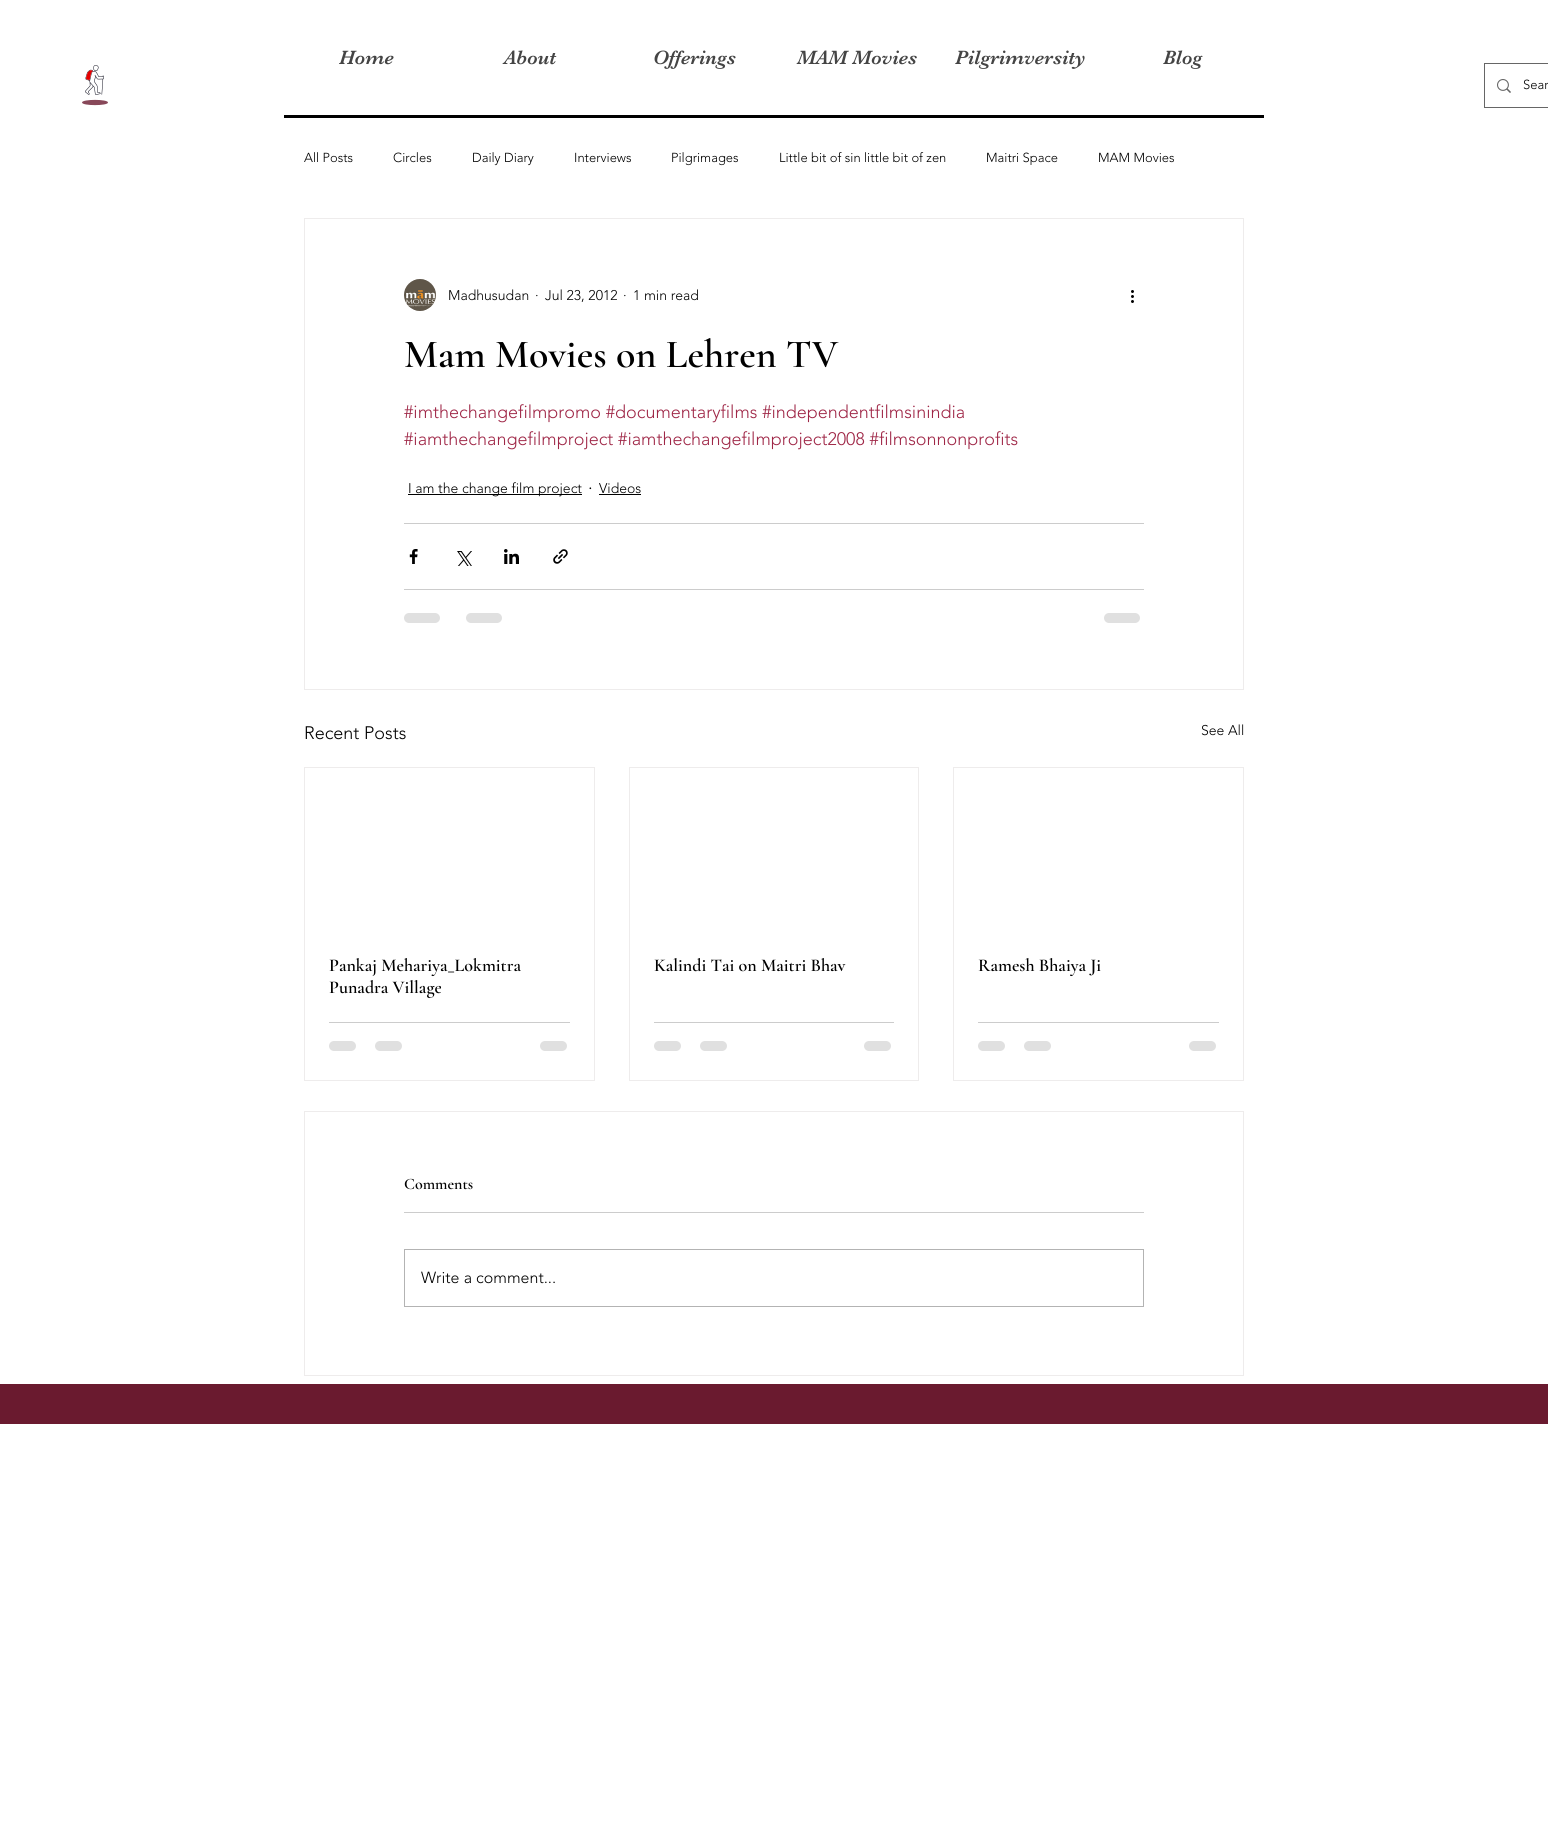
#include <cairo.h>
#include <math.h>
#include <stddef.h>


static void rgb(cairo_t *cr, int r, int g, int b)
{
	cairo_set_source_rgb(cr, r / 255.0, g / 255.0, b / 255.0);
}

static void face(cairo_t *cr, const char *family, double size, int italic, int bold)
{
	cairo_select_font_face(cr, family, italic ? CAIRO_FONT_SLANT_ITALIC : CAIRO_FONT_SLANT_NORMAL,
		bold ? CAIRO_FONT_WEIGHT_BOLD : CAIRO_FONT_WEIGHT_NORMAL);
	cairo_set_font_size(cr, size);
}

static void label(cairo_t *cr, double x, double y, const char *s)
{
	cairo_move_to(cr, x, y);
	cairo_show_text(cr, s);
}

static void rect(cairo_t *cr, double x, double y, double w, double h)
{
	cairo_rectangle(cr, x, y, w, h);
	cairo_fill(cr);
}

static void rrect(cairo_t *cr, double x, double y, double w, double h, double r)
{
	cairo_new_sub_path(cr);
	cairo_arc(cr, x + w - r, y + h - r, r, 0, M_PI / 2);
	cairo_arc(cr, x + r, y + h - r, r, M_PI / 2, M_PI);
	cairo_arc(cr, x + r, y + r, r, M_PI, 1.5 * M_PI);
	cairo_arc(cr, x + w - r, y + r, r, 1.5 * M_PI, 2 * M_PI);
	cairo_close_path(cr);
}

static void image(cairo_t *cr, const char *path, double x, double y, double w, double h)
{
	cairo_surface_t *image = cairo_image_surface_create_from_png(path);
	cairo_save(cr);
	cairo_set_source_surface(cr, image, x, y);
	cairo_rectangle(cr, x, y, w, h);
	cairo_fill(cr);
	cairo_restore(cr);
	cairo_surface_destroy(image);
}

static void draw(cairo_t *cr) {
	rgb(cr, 255, 255, 255);
	cairo_paint(cr);
	rgb(cr, 0, 0, 0);
	rect(cr, 284, 115, 980, 3);
	face(cr, "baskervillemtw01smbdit", 20, 0, 0);
	rgb(cr, 68, 68, 68);
	label(cr, 339, 64, "Home");
	label(cr, 504, 64, "About");
	label(cr, 653, 64, "Offerings");
	label(cr, 797, 64, "MAM Movies");
	label(cr, 955, 64, "Pilgrimversity");
	label(cr, 1163, 64, "Blog");
	image(cr, "image0.png", 85, 65, 19, 30);
	cairo_rectangle(cr, 1484.5, 63.5, 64, 44);
	rgb(cr, 102, 102, 102);
	cairo_set_line_width(cr, 1);
	cairo_stroke(cr);
	image(cr, "image1.png", 1497, 79, 14, 14);
	face(cr, "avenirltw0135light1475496 Light", 13, 0, 0);
	rgb(cr, 0, 0, 0);
	label(cr, 1523, 89, "Sear");
	rgb(cr, 136, 72, 89);
	cairo_new_path(cr);
	cairo_move_to(cr, 108, 102.5);
	cairo_curve_to(cr, 108, 106, 82, 106, 82, 102.5);
	cairo_curve_to(cr, 82, 99, 108, 99, 108, 102.5);
	cairo_close_path(cr);
	cairo_fill(cr);
	rgb(cr, 0, 0, 0);
	label(cr, 304, 162, "All Posts");
	label(cr, 393, 162, "Circles");
	label(cr, 472, 162, "Daily Diary");
	label(cr, 574, 162, "Interviews");
	label(cr, 671, 162, "Pilgrimages");
	label(cr, 779, 162, "Little bit of sin little bit of zen");
	label(cr, 986, 162, "Maitri Space");
	label(cr, 1098, 162, "MAM Movies");
	cairo_rectangle(cr, 304.5, 218.5, 939, 471);
	rgb(cr, 238, 236, 236);
	cairo_stroke(cr);
	image(cr, "image2.png", 404, 279, 32, 32);
	face(cr, "avenirltw0135light1475496 Light", 14, 0, 0);
	rgb(cr, 0, 0, 0);
	label(cr, 448, 300, "Madhusudan");
	label(cr, 535, 300, "·");
	label(cr, 545, 300, "Jul 23, 2012");
	label(cr, 623, 300, "·");
	label(cr, 633, 300, "1 min read");
	image(cr, "image3.png", 1131, 290, 3, 13);
	face(cr, "Cormorant Garamond SemiBold", 40, 0, 0);
	label(cr, 404, 367, "Mam Movies on Lehren TV");
	face(cr, "avenirltw0135light1475496 Light", 18, 0, 0);
	rgb(cr, 159, 39, 71);
	label(cr, 404, 418, "#imthechangefilmpromo #documentaryfilms #independentfilmsinindia");
	label(cr, 404, 445, "#iamthechangefilmproject #iamthechangefilmproject2008 #filmsonnonprofits");
	rgb(cr, 0, 0, 0);
	rect(cr, 408, 494, 174, 1);
	face(cr, "avenirltw0135light1475496 Light", 14, 0, 0);
	label(cr, 408, 493, "I am the change film project");
	face(cr, "avenirltw0135light1475496 Light", 18, 0, 0);
	label(cr, 588, 494, "·");
	face(cr, "avenirltw0135light1475496 Light", 14, 0, 0);
	label(cr, 599, 493, "Videos");
	rect(cr, 599, 494, 42, 1);
	rgb(cr, 204, 204, 204);
	rect(cr, 404, 523, 740, 1);
	image(cr, "image4.png", 409, 549, 9, 15);
	image(cr, "image5.png", 457, 551, 15, 15);
	image(cr, "image6.png", 504, 549, 15, 15);
	image(cr, "image7.png", 553, 549, 15, 15);
	rect(cr, 404, 589, 740, 1);
	rgb(cr, 224, 224, 224);
	rrect(cr, 404, 613, 36, 10, 5);
	cairo_fill(cr);
	rrect(cr, 466, 613, 36, 10, 5);
	cairo_fill(cr);
	rrect(cr, 1104, 613, 36, 10, 5);
	cairo_fill(cr);
	face(cr, "avenirltw0135light1475496 Light", 18, 0, 0);
	rgb(cr, 0, 0, 0);
	label(cr, 304, 739, "Recent Posts");
	face(cr, "avenirltw0135light1475496 Light", 14, 0, 0);
	label(cr, 1201, 735, "See All");
	cairo_rectangle(cr, 304.5, 767.5, 290, 313);
	rgb(cr, 238, 236, 236);
	cairo_stroke(cr);
	face(cr, "Cormorant Garamond SemiBold", 18, 0, 0);
	rgb(cr, 0, 0, 0);
	label(cr, 329, 971, "Pankaj Mehariya_Lokmitra");
	label(cr, 329, 993, "Punadra Village");
	rgb(cr, 204, 204, 204);
	rect(cr, 329, 1022, 241, 1);
	rgb(cr, 224, 224, 224);
	rrect(cr, 329, 1041, 27, 10, 5);
	cairo_fill(cr);
	rrect(cr, 375, 1041, 27, 10, 5);
	cairo_fill(cr);
	rrect(cr, 540, 1041, 27, 10, 5);
	cairo_fill(cr);
	cairo_rectangle(cr, 629.5, 767.5, 289, 313);
	rgb(cr, 238, 236, 236);
	cairo_stroke(cr);
	rgb(cr, 0, 0, 0);
	label(cr, 654, 971, "Kalindi Tai on Maitri Bhav");
	rgb(cr, 204, 204, 204);
	rect(cr, 654, 1022, 240, 1);
	rgb(cr, 224, 224, 224);
	rrect(cr, 654, 1041, 27, 10, 5);
	cairo_fill(cr);
	rrect(cr, 700, 1041, 27, 10, 5);
	cairo_fill(cr);
	rrect(cr, 864, 1041, 27, 10, 5);
	cairo_fill(cr);
	cairo_rectangle(cr, 953.5, 767.5, 290, 313);
	rgb(cr, 238, 236, 236);
	cairo_stroke(cr);
	rgb(cr, 0, 0, 0);
	label(cr, 978, 971, "Ramesh Bhaiya Ji");
	rgb(cr, 204, 204, 204);
	rect(cr, 978, 1022, 241, 1);
	rgb(cr, 224, 224, 224);
	rrect(cr, 978, 1041, 27, 10, 5);
	cairo_fill(cr);
	rrect(cr, 1024, 1041, 27, 10, 5);
	cairo_fill(cr);
	rrect(cr, 1189, 1041, 27, 10, 5);
	cairo_fill(cr);
	cairo_rectangle(cr, 304.5, 1111.5, 939, 264);
	rgb(cr, 238, 236, 236);
	cairo_stroke(cr);
	face(cr, "Cormorant Garamond SemiBold", 16, 0, 0);
	rgb(cr, 0, 0, 0);
	label(cr, 404, 1189, "Comments");
	rgb(cr, 204, 204, 204);
	rect(cr, 404, 1212, 740, 1);
	cairo_rectangle(cr, 404.5, 1249.5, 739, 57);
	rgb(cr, 179, 179, 179);
	cairo_stroke(cr);
	face(cr, "avenirltw0135light1475496 Light", 16, 0, 0);
	rgb(cr, 0, 0, 0);
	label(cr, 421, 1283, "Write a comment...");
	rgb(cr, 106, 26, 47);
	rect(cr, 0, 1384, 1548, 40);
}

int main(void) {
	cairo_surface_t *surface = cairo_image_surface_create(CAIRO_FORMAT_RGB24, 1548, 1830);
	cairo_t *cr = cairo_create(surface);
	cairo_font_options_t *options = cairo_font_options_create();
	cairo_font_options_set_hint_metrics(options, CAIRO_HINT_METRICS_OFF);
	cairo_font_options_set_hint_style(options, CAIRO_HINT_STYLE_NONE);
	cairo_set_font_options(cr, options);
	cairo_set_miter_limit(cr, 4);
	draw(cr);
	cairo_surface_write_to_png(surface, "render.png");
	cairo_font_options_destroy(options);
	cairo_destroy(cr);
	cairo_surface_destroy(surface);
	return 0;
}
